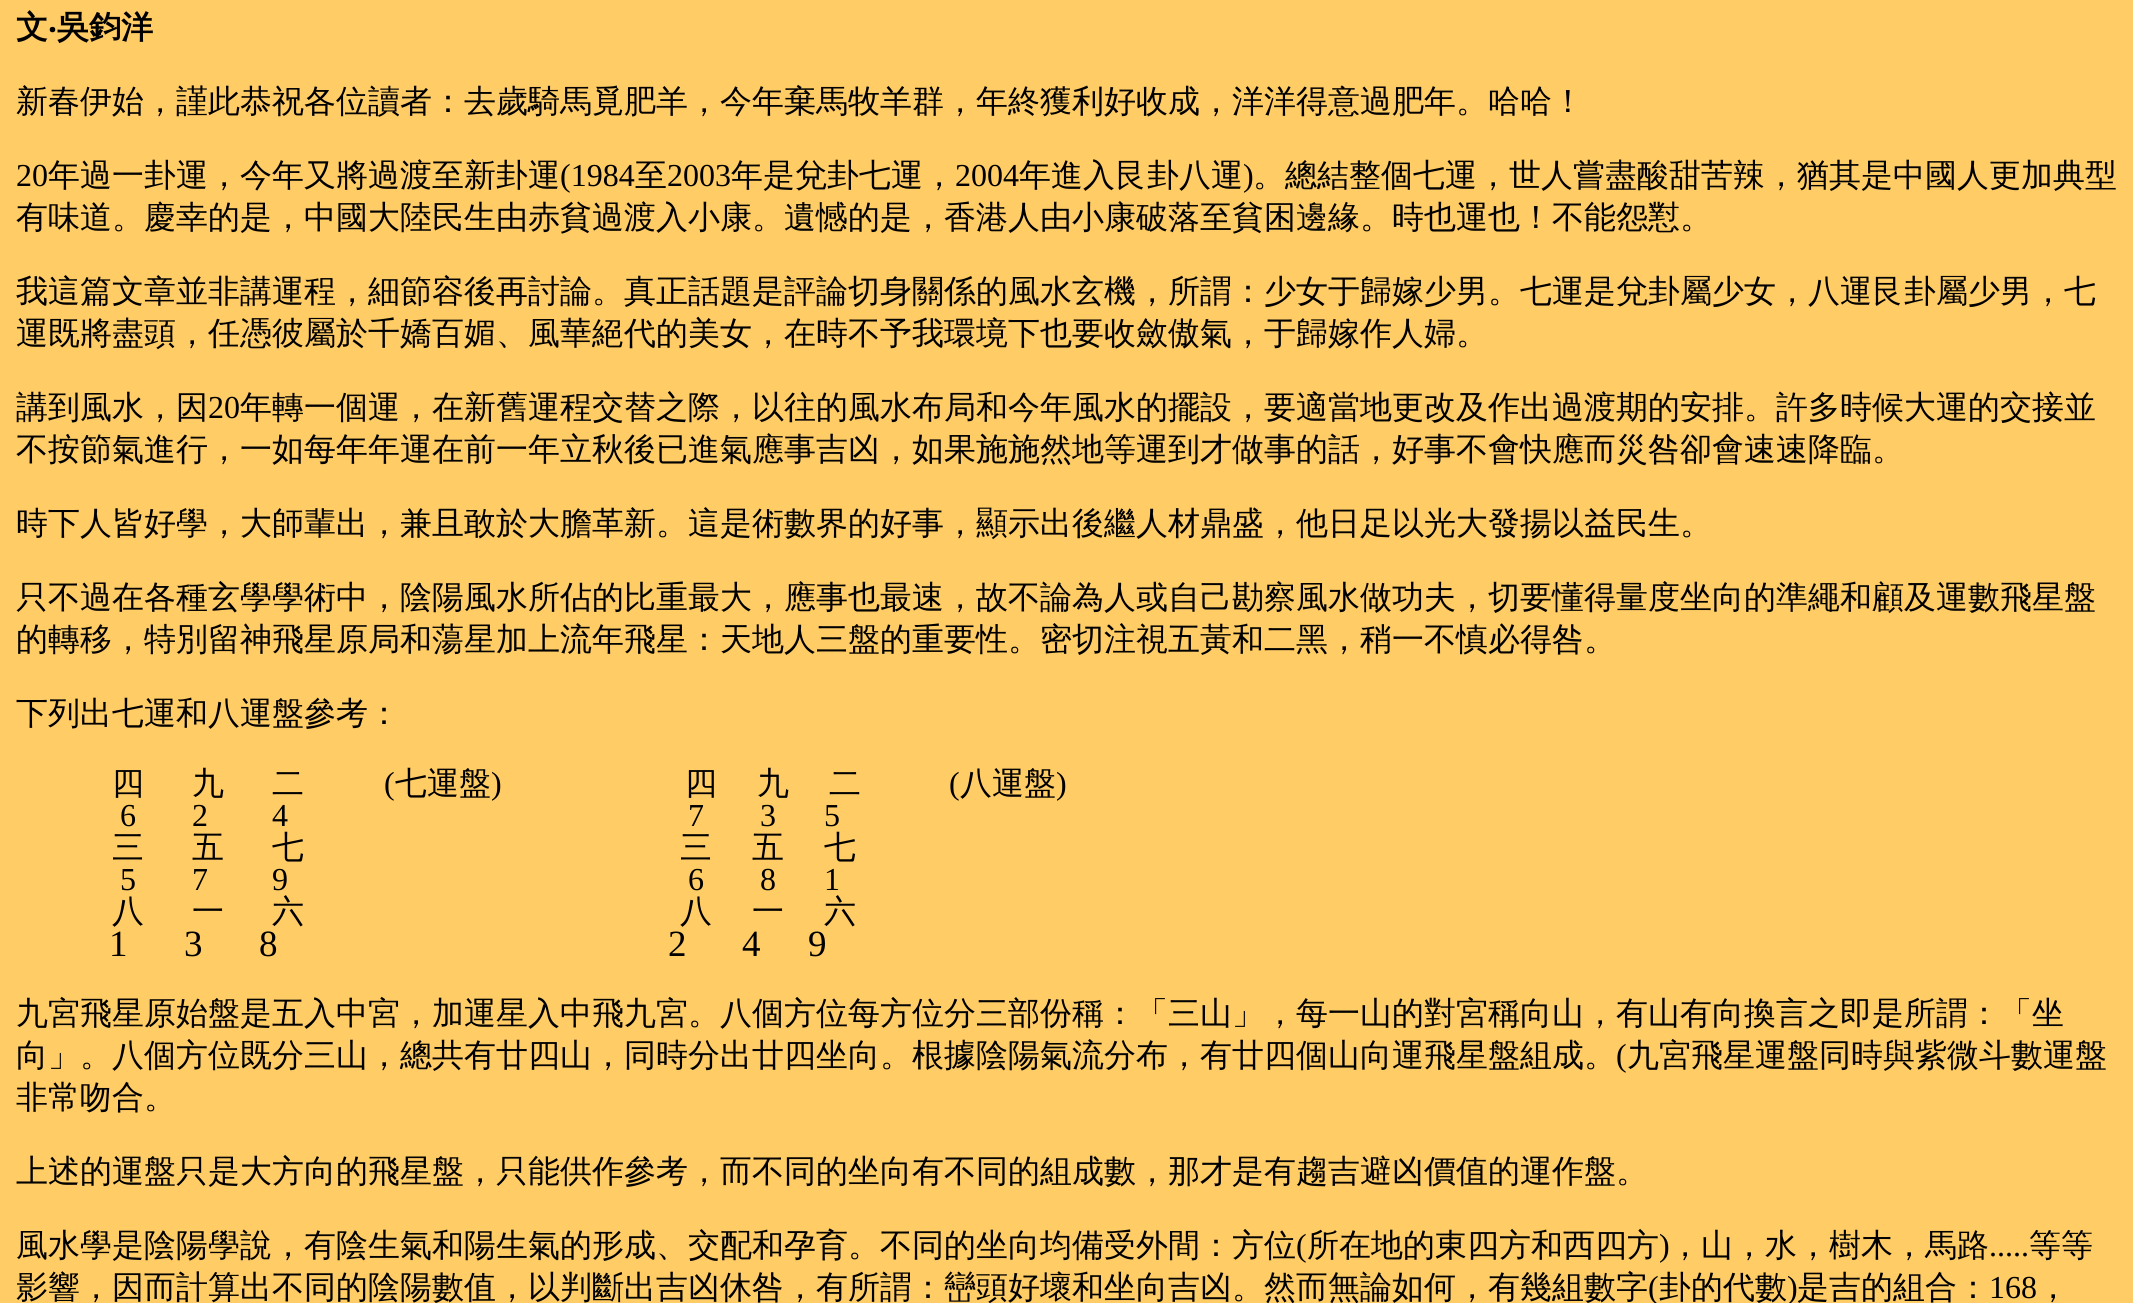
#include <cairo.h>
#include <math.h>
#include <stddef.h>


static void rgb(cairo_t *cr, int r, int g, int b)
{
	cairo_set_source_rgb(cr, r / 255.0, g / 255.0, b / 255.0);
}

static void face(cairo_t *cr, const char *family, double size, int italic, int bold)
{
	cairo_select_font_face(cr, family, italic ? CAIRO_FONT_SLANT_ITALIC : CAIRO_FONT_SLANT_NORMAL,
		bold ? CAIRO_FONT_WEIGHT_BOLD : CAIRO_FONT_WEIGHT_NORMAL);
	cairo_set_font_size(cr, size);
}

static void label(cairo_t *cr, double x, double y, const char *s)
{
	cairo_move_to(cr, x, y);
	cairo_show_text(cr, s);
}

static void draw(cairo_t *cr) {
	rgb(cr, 255, 204, 102);
	cairo_paint(cr);
	face(cr, "WenQuanYi Zen Hei", 32, 0, 1);
	rgb(cr, 0, 0, 0);
	label(cr, 16, 38, "文");
	face(cr, "Noto Sans", 32, 0, 1);
	label(cr, 48, 38, "‧");
	face(cr, "WenQuanYi Zen Hei", 32, 0, 1);
	label(cr, 57, 38, "吳鈞洋");
	face(cr, "WenQuanYi Zen Hei Medium", 32, 0, 0);
	label(cr, 16, 112, "新春伊始，謹此恭祝各位讀者：去歲騎馬覓肥羊，今年棄馬牧羊群，年終獲利好收成，洋洋得意過肥年。哈哈！");
	face(cr, "Liberation Serif", 32, 0, 0);
	label(cr, 16, 186, "20");
	face(cr, "WenQuanYi Zen Hei Medium", 32, 0, 0);
	label(cr, 48, 186, "年過一卦運，今年又將過渡至新卦運");
	face(cr, "Liberation Serif", 32, 0, 0);
	label(cr, 560, 186, "(1984");
	face(cr, "WenQuanYi Zen Hei Medium", 32, 0, 0);
	label(cr, 635, 186, "至");
	face(cr, "Liberation Serif", 32, 0, 0);
	label(cr, 667, 186, "2003");
	face(cr, "WenQuanYi Zen Hei Medium", 32, 0, 0);
	label(cr, 731, 186, "年是兌卦七運，");
	face(cr, "Liberation Serif", 32, 0, 0);
	label(cr, 955, 186, "2004");
	face(cr, "WenQuanYi Zen Hei Medium", 32, 0, 0);
	label(cr, 1019, 186, "年進入艮卦八運");
	face(cr, "Liberation Serif", 32, 0, 0);
	label(cr, 1243, 186, ")");
	face(cr, "WenQuanYi Zen Hei Medium", 32, 0, 0);
	label(cr, 1253, 186, "。總結整個七運，世人嘗盡酸甜苦辣，猶其是中國人更加典型");
	label(cr, 16, 228, "有味道。慶幸的是，中國大陸民生由赤貧過渡入小康。遺憾的是，香港人由小康破落至貧困邊緣。時也運也！不能怨懟。");
	label(cr, 16, 302, "我這篇文章並非講運程，細節容後再討論。真正話題是評論切身關係的風水玄機，所謂：少女于歸嫁少男。七運是兌卦屬少女，八運艮卦屬少男，七");
	label(cr, 16, 344, "運既將盡頭，任憑彼屬於千嬌百媚、風華絕代的美女，在時不予我環境下也要收斂傲氣，于歸嫁作人婦。");
	label(cr, 16, 418, "講到風水，因");
	face(cr, "Liberation Serif", 32, 0, 0);
	label(cr, 208, 418, "20");
	face(cr, "WenQuanYi Zen Hei Medium", 32, 0, 0);
	label(cr, 240, 418, "年轉一個運，在新舊運程交替之際，以往的風水布局和今年風水的擺設，要適當地更改及作出過渡期的安排。許多時候大運的交接並");
	label(cr, 16, 460, "不按節氣進行，一如每年年運在前一年立秋後已進氣應事吉凶，如果施施然地等運到才做事的話，好事不會快應而災咎卻會速速降臨。");
	label(cr, 16, 534, "時下人皆好學，大師輩出，兼且敢於大膽革新。這是術數界的好事，顯示出後繼人材鼎盛，他日足以光大發揚以益民生。");
	label(cr, 16, 608, "只不過在各種玄學學術中，陰陽風水所佔的比重最大，應事也最速，故不論為人或自己勘察風水做功夫，切要懂得量度坐向的準繩和顧及運數飛星盤");
	label(cr, 16, 650, "的轉移，特別留神飛星原局和蕩星加上流年飛星：天地人三盤的重要性。密切注視五黃和二黑，稍一不慎必得咎。");
	label(cr, 16, 724, "下列出七運和八運盤參考：");
	label(cr, 112, 794, "四");
	label(cr, 192, 794, "九");
	label(cr, 272, 794, "二");
	face(cr, "Liberation Serif", 32, 0, 0);
	label(cr, 384, 794, "(");
	face(cr, "WenQuanYi Zen Hei Medium", 32, 0, 0);
	label(cr, 395, 794, "七運盤");
	face(cr, "Liberation Serif", 32, 0, 0);
	label(cr, 491, 794, ")");
	face(cr, "WenQuanYi Zen Hei Medium", 32, 0, 0);
	label(cr, 685, 794, "四");
	label(cr, 757, 794, "九");
	label(cr, 829, 794, "二");
	face(cr, "Liberation Serif", 32, 0, 0);
	label(cr, 949, 794, "(");
	face(cr, "WenQuanYi Zen Hei Medium", 32, 0, 0);
	label(cr, 960, 794, "八運盤");
	face(cr, "Liberation Serif", 32, 0, 0);
	label(cr, 1056, 794, ")");
	label(cr, 120, 826, "6");
	label(cr, 192, 826, "2");
	label(cr, 272, 826, "4");
	label(cr, 688, 826, "7");
	label(cr, 760, 826, "3");
	label(cr, 824, 826, "5");
	face(cr, "WenQuanYi Zen Hei Medium", 32, 0, 0);
	label(cr, 112, 858, "三");
	label(cr, 192, 858, "五");
	label(cr, 272, 858, "七");
	label(cr, 680, 858, "三");
	label(cr, 752, 858, "五");
	label(cr, 824, 858, "七");
	face(cr, "Liberation Serif", 32, 0, 0);
	label(cr, 120, 890, "5");
	label(cr, 192, 890, "7");
	label(cr, 272, 890, "9");
	label(cr, 688, 890, "6");
	label(cr, 760, 890, "8");
	label(cr, 824, 890, "1");
	face(cr, "WenQuanYi Zen Hei Medium", 32, 0, 0);
	label(cr, 112, 922, "八");
	label(cr, 192, 922, "一");
	label(cr, 272, 922, "六");
	label(cr, 680, 922, "八");
	label(cr, 752, 922, "一");
	label(cr, 824, 922, "六");
	face(cr, "Liberation Serif", 37, 0, 0);
	label(cr, 109, 956, "1");
	label(cr, 184, 956, "3");
	label(cr, 259, 956, "8");
	label(cr, 668, 956, "2");
	label(cr, 742, 956, "4");
	label(cr, 808, 956, "9");
	face(cr, "WenQuanYi Zen Hei Medium", 32, 0, 0);
	label(cr, 16, 1024, "九宮飛星原始盤是五入中宮，加運星入中飛九宮。八個方位每方位分三部份稱：「三山」，每一山的對宮稱向山，有山有向換言之即是所謂：「坐");
	label(cr, 16, 1066, "向」。八個方位既分三山，總共有廿四山，同時分出廿四坐向。根據陰陽氣流分布，有廿四個山向運飛星盤組成。");
	face(cr, "Liberation Serif", 32, 0, 0);
	label(cr, 1616, 1066, "(");
	face(cr, "WenQuanYi Zen Hei Medium", 32, 0, 0);
	label(cr, 1627, 1066, "九宮飛星運盤同時與紫微斗數運盤");
	label(cr, 16, 1108, "非常吻合。");
	label(cr, 16, 1182, "上述的運盤只是大方向的飛星盤，只能供作參考，而不同的坐向有不同的組成數，那才是有趨吉避凶價值的運作盤。");
	label(cr, 16, 1256, "風水學是陰陽學說，有陰生氣和陽生氣的形成、交配和孕育。不同的坐向均備受外間：方位");
	face(cr, "Liberation Serif", 32, 0, 0);
	label(cr, 1296, 1256, "(");
	face(cr, "WenQuanYi Zen Hei Medium", 32, 0, 0);
	label(cr, 1307, 1256, "所在地的東四方和西四方");
	face(cr, "Liberation Serif", 32, 0, 0);
	label(cr, 1659, 1256, ")");
	face(cr, "WenQuanYi Zen Hei Medium", 32, 0, 0);
	label(cr, 1669, 1256, "，山，水，樹木，馬路");
	face(cr, "Liberation Serif", 32, 0, 0);
	label(cr, 1989, 1256, ".....");
	face(cr, "WenQuanYi Zen Hei Medium", 32, 0, 0);
	label(cr, 2029, 1256, "等等");
	label(cr, 16, 1298, "影響，因而計算出不同的陰陽數值，以判斷出吉凶休咎，有所謂：巒頭好壞和坐向吉凶。然而無論如何，有幾組數字");
	face(cr, "Liberation Serif", 32, 0, 0);
	label(cr, 1648, 1298, "(");
	face(cr, "WenQuanYi Zen Hei Medium", 32, 0, 0);
	label(cr, 1659, 1298, "卦的代數");
	face(cr, "Liberation Serif", 32, 0, 0);
	label(cr, 1787, 1298, ")");
	face(cr, "WenQuanYi Zen Hei Medium", 32, 0, 0);
	label(cr, 1797, 1298, "是吉的組合：");
	face(cr, "Liberation Serif", 32, 0, 0);
	label(cr, 1989, 1298, "168");
	face(cr, "WenQuanYi Zen Hei Medium", 32, 0, 0);
	label(cr, 2037, 1298, "，");
}

int main(void) {
	cairo_surface_t *surface = cairo_image_surface_create(CAIRO_FORMAT_RGB24, 2133, 1303);
	cairo_t *cr = cairo_create(surface);
	cairo_font_options_t *options = cairo_font_options_create();
	cairo_font_options_set_hint_metrics(options, CAIRO_HINT_METRICS_OFF);
	cairo_font_options_set_hint_style(options, CAIRO_HINT_STYLE_NONE);
	cairo_set_font_options(cr, options);
	cairo_set_miter_limit(cr, 4);
	draw(cr);
	cairo_surface_write_to_png(surface, "render.png");
	cairo_font_options_destroy(options);
	cairo_destroy(cr);
	cairo_surface_destroy(surface);
	return 0;
}
